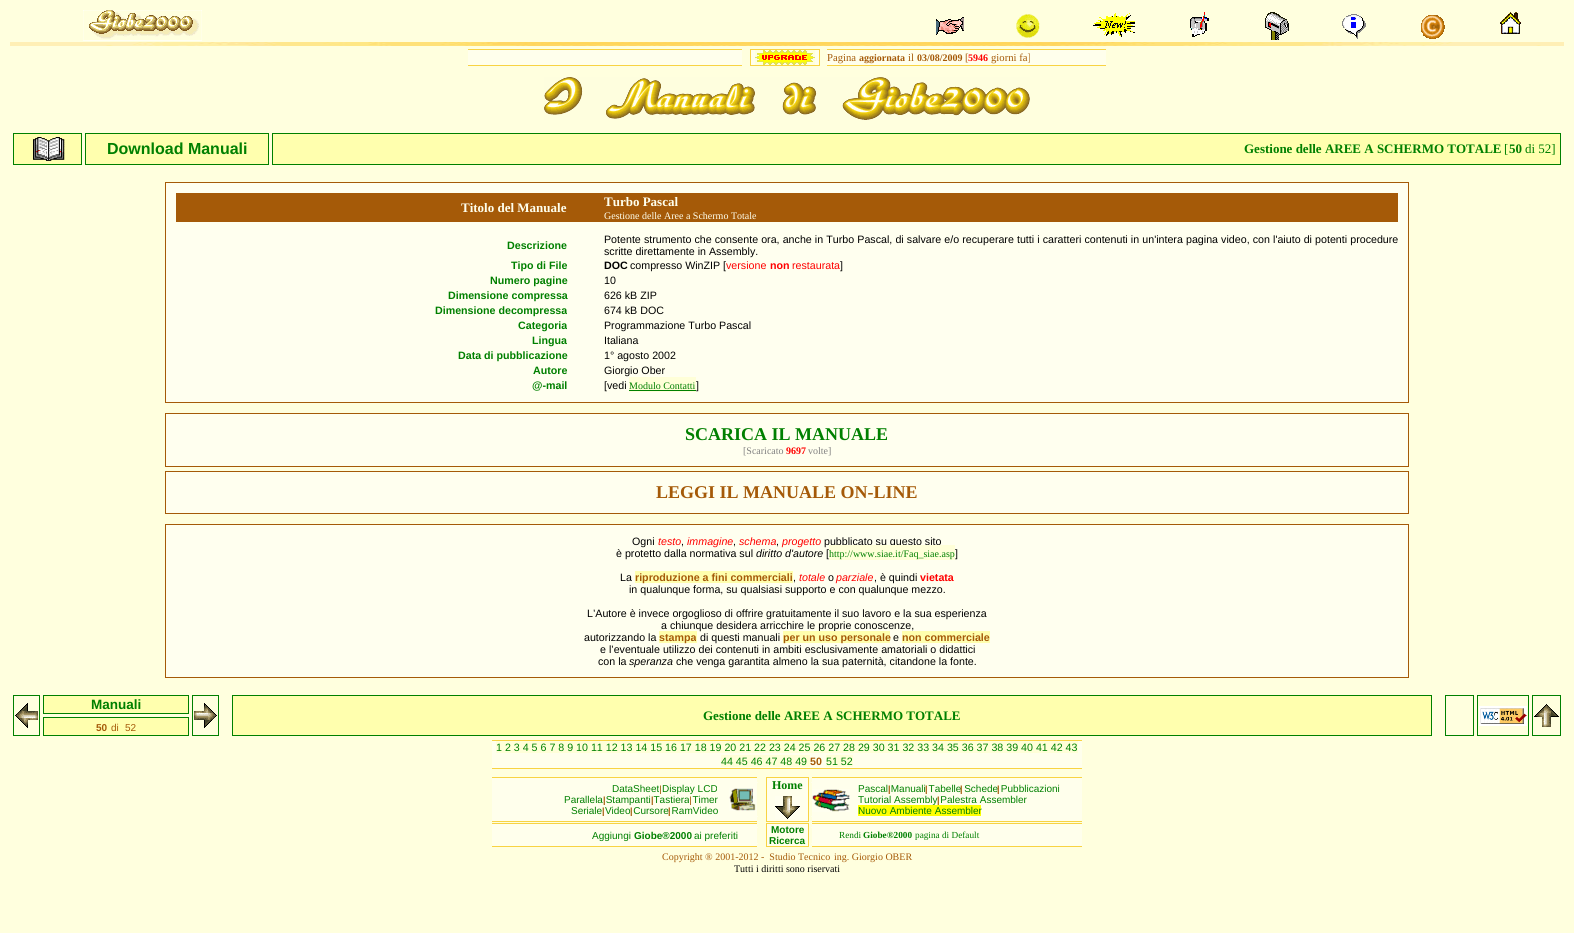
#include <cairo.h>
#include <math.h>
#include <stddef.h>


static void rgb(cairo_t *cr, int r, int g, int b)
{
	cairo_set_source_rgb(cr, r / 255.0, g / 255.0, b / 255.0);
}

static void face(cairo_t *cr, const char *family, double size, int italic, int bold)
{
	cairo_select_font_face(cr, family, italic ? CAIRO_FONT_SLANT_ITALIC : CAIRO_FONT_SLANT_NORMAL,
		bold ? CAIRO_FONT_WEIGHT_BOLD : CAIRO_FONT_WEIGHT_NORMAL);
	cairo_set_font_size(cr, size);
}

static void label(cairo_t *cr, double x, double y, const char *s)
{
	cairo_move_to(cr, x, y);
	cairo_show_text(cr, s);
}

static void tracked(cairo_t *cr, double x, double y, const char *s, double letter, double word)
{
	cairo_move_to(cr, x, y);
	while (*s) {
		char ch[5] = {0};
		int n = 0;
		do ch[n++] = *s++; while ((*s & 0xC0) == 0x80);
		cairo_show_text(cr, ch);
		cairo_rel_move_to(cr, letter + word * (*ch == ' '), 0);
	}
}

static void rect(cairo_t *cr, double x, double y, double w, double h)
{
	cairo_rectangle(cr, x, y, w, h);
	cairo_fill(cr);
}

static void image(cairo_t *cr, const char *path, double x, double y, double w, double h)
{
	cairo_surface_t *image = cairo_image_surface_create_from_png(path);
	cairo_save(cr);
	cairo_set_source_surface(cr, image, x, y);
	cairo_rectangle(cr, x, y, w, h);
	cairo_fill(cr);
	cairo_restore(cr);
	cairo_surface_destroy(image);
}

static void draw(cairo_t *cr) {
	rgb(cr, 255, 255, 222);
	cairo_paint(cr);
	image(cr, "image0.png", 83, 10, 119, 31);
	image(cr, "image1.png", 936, 17, 28, 18);
	image(cr, "image2.png", 1016, 13, 24, 26);
	image(cr, "image3.png", 1093, 13, 42, 24);
	image(cr, "image4.png", 1190, 12, 19, 25);
	image(cr, "image5.png", 1265, 12, 24, 28);
	image(cr, "image6.png", 1342, 14, 24, 25);
	image(cr, "image7.png", 1421, 15, 24, 24);
	image(cr, "image8.png", 1500, 12, 21, 22);
	image(cr, "image9.png", 10, 42, 1554, 4);
	rgb(cr, 255, 255, 236);
	rect(cr, 468, 50, 274, 15);
	rgb(cr, 248, 211, 67);
	rect(cr, 468, 49, 274, 1);
	rect(cr, 468, 65, 274, 1);
	rgb(cr, 255, 255, 236);
	cairo_rectangle(cr, 750.5, 49.5, 69, 16);
	cairo_fill_preserve(cr);
	rgb(cr, 248, 211, 67);
	cairo_set_line_width(cr, 1);
	cairo_stroke(cr);
	image(cr, "image10.png", 755, 50, 60, 15);
	rgb(cr, 255, 255, 236);
	rect(cr, 827, 50, 279, 15);
	rgb(cr, 248, 211, 67);
	rect(cr, 827, 49, 279, 1);
	rect(cr, 827, 65, 279, 1);
	face(cr, "Liberation Serif", 10.67, 0, 0);
	rgb(cr, 165, 90, 8);
	label(cr, 827, 61, "Pagina");
	face(cr, "Liberation Serif", 10, 0, 1);
	label(cr, 859, 61, "aggiornata");
	face(cr, "Liberation Serif", 10.67, 0, 0);
	label(cr, 908, 61, "il");
	face(cr, "Liberation Serif", 10, 0, 1);
	label(cr, 917, 61, "03/08/2009");
	face(cr, "Liberation Serif", 10.67, 0, 0);
	label(cr, 965, 61, "[");
	face(cr, "Liberation Serif", 10, 0, 1);
	rgb(cr, 255, 0, 0);
	label(cr, 968, 61, "5946");
	face(cr, "Liberation Serif", 10.67, 0, 0);
	rgb(cr, 165, 90, 8);
	label(cr, 991, 61, "giorni fa]");
	image(cr, "image11.png", 544, 77, 486, 43);
	rgb(cr, 255, 255, 174);
	cairo_rectangle(cr, 13.5, 133.5, 68, 31);
	cairo_fill_preserve(cr);
	rgb(cr, 0, 128, 0);
	cairo_stroke(cr);
	image(cr, "image12.png", 33, 137, 32, 24);
	rgb(cr, 255, 255, 174);
	cairo_rectangle(cr, 85.5, 133.5, 183, 31);
	cairo_fill_preserve(cr);
	rgb(cr, 0, 128, 0);
	cairo_stroke(cr);
	face(cr, "Liberation Sans", 16, 0, 1);
	label(cr, 107, 154, "Download Manuali");
	rgb(cr, 255, 255, 174);
	cairo_rectangle(cr, 272.5, 133.5, 1288, 31);
	cairo_fill_preserve(cr);
	rgb(cr, 0, 128, 0);
	cairo_stroke(cr);
	face(cr, "Liberation Serif", 13, 0, 1);
	label(cr, 1244, 153, "Gestione delle AREE A SCHERMO TOTALE");
	face(cr, "Liberation Serif", 13, 0, 0);
	label(cr, 1504, 153, "[");
	face(cr, "Liberation Serif", 13, 0, 1);
	label(cr, 1509, 153, "50");
	face(cr, "Liberation Serif", 13, 0, 0);
	label(cr, 1525, 153, "di 52]");
	rgb(cr, 255, 255, 239);
	cairo_rectangle(cr, 165.5, 182.5, 1243, 220);
	cairo_fill_preserve(cr);
	rgb(cr, 165, 90, 8);
	cairo_stroke(cr);
	rect(cr, 567, 194, 830, 28);
	rect(cr, 177, 194, 390, 27);
	rect(cr, 176, 221, 392, 1);
	rect(cr, 176, 193, 1222, 1);
	rect(cr, 176, 193, 1, 29);
	face(cr, "Liberation Serif", 13, 0, 1);
	rgb(cr, 255, 255, 237);
	label(cr, 461, 212, "Titolo del Manuale");
	rgb(cr, 165, 90, 8);
	rect(cr, 1397, 193, 1, 29);
	rgb(cr, 255, 255, 237);
	label(cr, 604, 206, "Turbo Pascal");
	face(cr, "Liberation Serif", 10, 0, 0);
	label(cr, 604, 219, "Gestione delle Aree a Schermo Totale");
	face(cr, "Liberation Sans", 10.67, 0, 1);
	rgb(cr, 0, 128, 0);
	label(cr, 507, 249, "Descrizione");
	face(cr, "Liberation Sans", 10.67, 0, 0);
	rgb(cr, 0, 0, 0);
	tracked(cr, 604, 243, "Potente strumento che consente ora, anche in Turbo Pascal, di salvare e/o recuperare tutti i caratteri contenuti in un'intera pagina video, con l'aiuto di potenti procedure", 0, 0.15);
	label(cr, 604, 255, "scritte direttamente in Assembly.");
	face(cr, "Liberation Sans", 10.67, 0, 1);
	rgb(cr, 0, 128, 0);
	label(cr, 511, 269, "Tipo di File");
	rgb(cr, 0, 0, 0);
	label(cr, 604, 269, "DOC");
	face(cr, "Liberation Sans", 10.67, 0, 0);
	label(cr, 630, 269, "compresso WinZIP [");
	rgb(cr, 255, 0, 0);
	label(cr, 726, 269, "versione");
	face(cr, "Liberation Sans", 10.67, 0, 1);
	label(cr, 770, 269, "non");
	face(cr, "Liberation Sans", 10.67, 0, 0);
	label(cr, 792, 269, "restaurata");
	rgb(cr, 0, 0, 0);
	label(cr, 840, 269, "]");
	face(cr, "Liberation Sans", 10.67, 0, 1);
	rgb(cr, 0, 128, 0);
	label(cr, 490, 284, "Numero pagine");
	face(cr, "Liberation Sans", 10.67, 0, 0);
	rgb(cr, 0, 0, 0);
	label(cr, 604, 284, "10");
	face(cr, "Liberation Sans", 10.67, 0, 1);
	rgb(cr, 0, 128, 0);
	label(cr, 448, 299, "Dimensione compressa");
	face(cr, "Liberation Sans", 10.67, 0, 0);
	rgb(cr, 0, 0, 0);
	label(cr, 604, 299, "626 kB ZIP");
	face(cr, "Liberation Sans", 10.67, 0, 1);
	rgb(cr, 0, 128, 0);
	label(cr, 435, 314, "Dimensione decompressa");
	face(cr, "Liberation Sans", 10.67, 0, 0);
	rgb(cr, 0, 0, 0);
	label(cr, 604, 314, "674 kB DOC");
	face(cr, "Liberation Sans", 10.67, 0, 1);
	rgb(cr, 0, 128, 0);
	label(cr, 518, 329, "Categoria");
	face(cr, "Liberation Sans", 10.67, 0, 0);
	rgb(cr, 0, 0, 0);
	label(cr, 604, 329, "Programmazione Turbo Pascal");
	face(cr, "Liberation Sans", 10.67, 0, 1);
	rgb(cr, 0, 128, 0);
	label(cr, 532, 344, "Lingua");
	face(cr, "Liberation Sans", 10.67, 0, 0);
	rgb(cr, 0, 0, 0);
	label(cr, 604, 344, "Italiana");
	face(cr, "Liberation Sans", 10.67, 0, 1);
	rgb(cr, 0, 128, 0);
	label(cr, 458, 359, "Data di pubblicazione");
	face(cr, "Liberation Sans", 10.67, 0, 0);
	rgb(cr, 0, 0, 0);
	label(cr, 604, 359, "1° agosto 2002");
	face(cr, "Liberation Sans", 10.67, 0, 1);
	rgb(cr, 0, 128, 0);
	label(cr, 533, 374, "Autore");
	face(cr, "Liberation Sans", 10.67, 0, 0);
	rgb(cr, 0, 0, 0);
	label(cr, 604, 374, "Giorgio Ober");
	face(cr, "Liberation Sans", 10.67, 0, 1);
	rgb(cr, 0, 128, 0);
	label(cr, 532, 389, "@-mail");
	face(cr, "Liberation Sans", 10.67, 0, 0);
	rgb(cr, 0, 0, 0);
	label(cr, 604, 389, "[vedi");
	rgb(cr, 255, 255, 216);
	rect(cr, 629, 377, 67, 15);
	face(cr, "Liberation Serif", 10, 0, 0);
	rgb(cr, 0, 128, 0);
	label(cr, 629, 389, "Modulo Contatti");
	rect(cr, 629, 390, 67, 1);
	face(cr, "Liberation Sans", 10.67, 0, 0);
	rgb(cr, 0, 0, 0);
	label(cr, 696, 389, "]");
	rgb(cr, 255, 255, 239);
	cairo_rectangle(cr, 165.5, 413.5, 1243, 53);
	cairo_fill_preserve(cr);
	rgb(cr, 165, 90, 8);
	cairo_stroke(cr);
	face(cr, "Liberation Serif", 18, 0, 1);
	rgb(cr, 0, 128, 0);
	label(cr, 685, 440, "SCARICA IL MANUALE");
	face(cr, "Liberation Serif", 10, 0, 0);
	rgb(cr, 128, 128, 128);
	label(cr, 743, 454, "[Scaricato");
	face(cr, "Liberation Serif", 10, 0, 1);
	rgb(cr, 255, 0, 0);
	label(cr, 786, 454, "9697");
	face(cr, "Liberation Serif", 10, 0, 0);
	rgb(cr, 128, 128, 128);
	label(cr, 808, 454, "volte]");
	rgb(cr, 255, 255, 239);
	cairo_rectangle(cr, 165.5, 471.5, 1243, 42);
	cairo_fill_preserve(cr);
	rgb(cr, 165, 90, 8);
	cairo_stroke(cr);
	face(cr, "Liberation Serif", 18, 0, 1);
	label(cr, 656, 498, "LEGGI IL MANUALE ON-LINE");
	rgb(cr, 255, 255, 239);
	cairo_rectangle(cr, 165.5, 524.5, 1243, 153);
	cairo_fill_preserve(cr);
	rgb(cr, 165, 90, 8);
	cairo_stroke(cr);
	face(cr, "Liberation Sans", 10.67, 0, 0);
	rgb(cr, 0, 0, 0);
	label(cr, 632, 545, "Ogni");
	face(cr, "Liberation Sans", 10.67, 1, 0);
	rgb(cr, 255, 0, 0);
	label(cr, 658, 545, "testo");
	face(cr, "Liberation Sans", 10.67, 0, 0);
	rgb(cr, 0, 0, 0);
	label(cr, 681, 545, ",");
	face(cr, "Liberation Sans", 10.67, 1, 0);
	rgb(cr, 255, 0, 0);
	label(cr, 687, 545, "immagine");
	face(cr, "Liberation Sans", 10.67, 0, 0);
	rgb(cr, 0, 0, 0);
	label(cr, 733, 545, ",");
	face(cr, "Liberation Sans", 10.67, 1, 0);
	rgb(cr, 255, 0, 0);
	label(cr, 739, 545, "schema");
	face(cr, "Liberation Sans", 10.67, 0, 0);
	rgb(cr, 0, 0, 0);
	label(cr, 776, 545, ",");
	face(cr, "Liberation Sans", 10.67, 1, 0);
	rgb(cr, 255, 0, 0);
	label(cr, 782, 545, "progetto");
	face(cr, "Liberation Sans", 10.67, 0, 0);
	rgb(cr, 0, 0, 0);
	label(cr, 824, 545, "pubblicato su questo sito");
	label(cr, 616, 557, "è protetto dalla normativa sul");
	face(cr, "Liberation Sans", 10.67, 1, 0);
	label(cr, 756, 557, "diritto d'autore");
	face(cr, "Liberation Sans", 10.67, 0, 0);
	label(cr, 826, 557, "[");
	rgb(cr, 255, 255, 216);
	rect(cr, 829, 545, 126, 15);
	face(cr, "Liberation Serif", 10, 0, 0);
	rgb(cr, 0, 128, 0);
	label(cr, 829, 557, "http://www.siae.it/Faq_siae.asp");
	face(cr, "Liberation Sans", 10.67, 0, 0);
	rgb(cr, 0, 0, 0);
	label(cr, 955, 557, "]");
	label(cr, 620, 581, "La");
	rgb(cr, 255, 255, 174);
	rect(cr, 635, 571, 158, 12);
	face(cr, "Liberation Sans", 10.67, 0, 1);
	rgb(cr, 165, 90, 8);
	label(cr, 635, 581, "riproduzione a fini commerciali");
	face(cr, "Liberation Sans", 10.67, 0, 0);
	rgb(cr, 0, 0, 0);
	label(cr, 793, 581, ",");
	face(cr, "Liberation Sans", 10.67, 1, 0);
	rgb(cr, 255, 0, 0);
	label(cr, 799, 581, "totale");
	face(cr, "Liberation Sans", 10.67, 0, 0);
	rgb(cr, 0, 0, 0);
	label(cr, 828, 581, "o");
	face(cr, "Liberation Sans", 10.67, 1, 0);
	rgb(cr, 255, 0, 0);
	label(cr, 836, 581, "parziale");
	face(cr, "Liberation Sans", 10.67, 0, 0);
	rgb(cr, 0, 0, 0);
	label(cr, 874, 581, ", è quindi");
	face(cr, "Liberation Sans", 10.67, 0, 1);
	rgb(cr, 255, 0, 0);
	label(cr, 920, 581, "vietata");
	face(cr, "Liberation Sans", 10.67, 0, 0);
	rgb(cr, 0, 0, 0);
	label(cr, 629, 593, "in qualunque forma, su qualsiasi supporto e con qualunque mezzo.");
	label(cr, 587, 617, "L’Autore è invece orgoglioso di offrire gratuitamente il suo lavoro e la sua esperienza");
	label(cr, 661, 629, "a chiunque desidera arricchire le proprie conoscenze,");
	label(cr, 584, 641, "autorizzando la");
	rgb(cr, 255, 255, 174);
	rect(cr, 659, 631, 38, 12);
	face(cr, "Liberation Sans", 10.67, 0, 1);
	rgb(cr, 165, 90, 8);
	label(cr, 659, 641, "stampa");
	face(cr, "Liberation Sans", 10.67, 0, 0);
	rgb(cr, 0, 0, 0);
	label(cr, 700, 641, "di questi manuali");
	rgb(cr, 255, 255, 174);
	rect(cr, 783, 631, 107, 12);
	face(cr, "Liberation Sans", 10.67, 0, 1);
	rgb(cr, 165, 90, 8);
	label(cr, 783, 641, "per un uso personale");
	face(cr, "Liberation Sans", 10.67, 0, 0);
	rgb(cr, 0, 0, 0);
	label(cr, 893, 641, "e");
	rgb(cr, 255, 255, 174);
	rect(cr, 902, 631, 88, 12);
	face(cr, "Liberation Sans", 10.67, 0, 1);
	rgb(cr, 165, 90, 8);
	label(cr, 902, 641, "non commerciale");
	face(cr, "Liberation Sans", 10.67, 0, 0);
	rgb(cr, 0, 0, 0);
	label(cr, 600, 653, "e l’eventuale utilizzo dei contenuti in ambiti esclusivamente amatoriali o didattici");
	label(cr, 598, 665, "con la");
	face(cr, "Liberation Sans", 10.67, 1, 0);
	label(cr, 629, 665, "speranza");
	face(cr, "Liberation Sans", 10.67, 0, 0);
	label(cr, 676, 665, "che venga garantita almeno la sua paternità, citandone la fonte.");
	cairo_rectangle(cr, 13.5, 695.5, 26, 40);
	rgb(cr, 0, 128, 0);
	cairo_stroke(cr);
	image(cr, "image13.png", 15, 703, 23, 25);
	rgb(cr, 255, 255, 174);
	cairo_rectangle(cr, 43.5, 695.5, 145, 18);
	cairo_fill_preserve(cr);
	rgb(cr, 0, 128, 0);
	cairo_stroke(cr);
	face(cr, "Liberation Sans", 13.5, 0, 1);
	label(cr, 91, 709, "Manuali");
	cairo_rectangle(cr, 192.5, 695.5, 26, 40);
	cairo_stroke(cr);
	image(cr, "image14.png", 194, 703, 23, 25);
	cairo_rectangle(cr, 1445.5, 695.5, 28, 40);
	cairo_stroke(cr);
	cairo_rectangle(cr, 1477.5, 695.5, 51, 40);
	cairo_stroke(cr);
	image(cr, "image15.png", 1479, 706, 48, 20);
	cairo_rectangle(cr, 1532.5, 695.5, 28, 40);
	cairo_stroke(cr);
	image(cr, "image16.png", 1534, 704, 25, 23);
	rgb(cr, 255, 255, 174);
	cairo_rectangle(cr, 232.5, 695.5, 1199, 40);
	cairo_fill_preserve(cr);
	rgb(cr, 0, 128, 0);
	cairo_stroke(cr);
	face(cr, "Liberation Serif", 13, 0, 1);
	label(cr, 703, 720, "Gestione delle AREE A SCHERMO TOTALE");
	rgb(cr, 255, 255, 174);
	cairo_rectangle(cr, 43.5, 717.5, 145, 18);
	cairo_fill_preserve(cr);
	rgb(cr, 0, 128, 0);
	cairo_stroke(cr);
	face(cr, "Liberation Sans", 10, 0, 1);
	rgb(cr, 165, 90, 8);
	label(cr, 96, 731, "50");
	face(cr, "Liberation Sans", 10, 0, 0);
	label(cr, 111, 731, "di");
	label(cr, 125, 731, "52");
	rgb(cr, 255, 255, 236);
	rect(cr, 492, 741, 590, 27);
	rgb(cr, 248, 211, 67);
	rect(cr, 492, 740, 590, 1);
	rect(cr, 492, 768, 590, 1);
	rgb(cr, 255, 255, 216);
	rect(cr, 496, 741, 582, 12);
	face(cr, "Liberation Sans", 10.67, 0, 0);
	rgb(cr, 0, 128, 0);
	label(cr, 496, 751, "1 2 3 4 5 6 7 8 9 10 11 12 13 14 15 16 17 18 19 20 21 22 23 24 25 26 27 28 29 30 31 32 33 34 35 36 37 38 39 40 41 42 43");
	rgb(cr, 255, 255, 216);
	rect(cr, 721, 755, 89, 12);
	rgb(cr, 0, 128, 0);
	label(cr, 721, 765, "44 45 46 47 48 49");
	face(cr, "Liberation Sans", 10.67, 0, 1);
	rgb(cr, 165, 90, 8);
	label(cr, 810, 765, "50");
	rgb(cr, 255, 255, 216);
	rect(cr, 826, 755, 27, 12);
	face(cr, "Liberation Sans", 10.67, 0, 0);
	rgb(cr, 0, 128, 0);
	label(cr, 826, 765, "51 52");
	rgb(cr, 255, 255, 236);
	rect(cr, 492, 778, 265, 43);
	rgb(cr, 248, 211, 67);
	rect(cr, 492, 777, 265, 1);
	rect(cr, 492, 821, 265, 1);
	face(cr, "Liberation Sans", 10, 0, 0);
	rgb(cr, 0, 128, 0);
	label(cr, 612, 792, "DataSheet Display LCD");
	face(cr, "Liberation Sans", 9, 0, 1);
	rgb(cr, 165, 90, 8);
	label(cr, 659, 792, "|");
	rgb(cr, 255, 255, 236);
	rect(cr, 659, 784, 1, 10);
	face(cr, "Liberation Sans", 10, 0, 0);
	rgb(cr, 0, 128, 0);
	label(cr, 564, 803, "Parallela Stampanti Tastiera Timer");
	rgb(cr, 255, 255, 236);
	rect(cr, 603, 795, 1, 10);
	face(cr, "Liberation Sans", 9, 0, 1);
	rgb(cr, 165, 90, 8);
	label(cr, 603, 803, "|");
	label(cr, 651, 803, "|");
	label(cr, 689, 803, "|");
	rgb(cr, 255, 255, 236);
	rect(cr, 689, 795, 1, 10);
	face(cr, "Liberation Sans", 10, 0, 0);
	rgb(cr, 0, 128, 0);
	label(cr, 571, 814, "Seriale Video Cursore RamVideo");
	face(cr, "Liberation Sans", 9, 0, 1);
	rgb(cr, 165, 90, 8);
	label(cr, 602, 814, "|");
	label(cr, 630, 814, "|");
	label(cr, 668, 814, "|");
	rgb(cr, 255, 255, 236);
	rect(cr, 757, 782, 1, 1);
	rect(cr, 757, 816, 1, 1);
	image(cr, "image17.png", 729, 788, 27, 23);
	cairo_rectangle(cr, 766.5, 777.5, 42, 44);
	cairo_fill_preserve(cr);
	rgb(cr, 248, 211, 67);
	cairo_stroke(cr);
	face(cr, "Liberation Serif", 12, 0, 1);
	rgb(cr, 0, 128, 0);
	label(cr, 772, 789, "Home");
	image(cr, "image18.png", 775, 796, 25, 23);
	rgb(cr, 255, 255, 236);
	rect(cr, 812, 778, 270, 43);
	rgb(cr, 248, 211, 67);
	rect(cr, 812, 777, 270, 1);
	rect(cr, 812, 821, 270, 1);
	rgb(cr, 255, 255, 236);
	rect(cr, 811, 782, 1, 1);
	rect(cr, 811, 816, 1, 1);
	image(cr, "image19.png", 812, 789, 38, 23);
	face(cr, "Liberation Sans", 10, 0, 0);
	rgb(cr, 0, 128, 0);
	label(cr, 858, 792, "Pascal Manuali Tabelle Schede Pubblicazioni");
	face(cr, "Liberation Sans", 9, 0, 1);
	rgb(cr, 165, 90, 8);
	label(cr, 888, 792, "|");
	label(cr, 925, 792, "|");
	label(cr, 960, 792, "|");
	label(cr, 997, 792, "|");
	face(cr, "Liberation Sans", 10, 0, 0);
	rgb(cr, 0, 128, 0);
	label(cr, 858, 803, "Tutorial Assembly Palestra Assembler");
	face(cr, "Liberation Sans", 9, 0, 1);
	rgb(cr, 165, 90, 8);
	label(cr, 937, 803, "|");
	rgb(cr, 255, 255, 0);
	rect(cr, 858, 805, 123, 11);
	face(cr, "Liberation Sans", 10, 0, 0);
	rgb(cr, 0, 128, 0);
	label(cr, 858, 814, "Nuovo Ambiente Assembler");
	rgb(cr, 255, 255, 236);
	rect(cr, 492, 824, 265, 22);
	rgb(cr, 248, 211, 67);
	rect(cr, 492, 823, 265, 1);
	rect(cr, 492, 846, 265, 1);
	rgb(cr, 0, 128, 0);
	label(cr, 592, 839, "Aggiungi");
	face(cr, "Liberation Sans", 10, 0, 1);
	label(cr, 634, 839, "Giobe®2000");
	face(cr, "Liberation Sans", 10, 0, 0);
	label(cr, 694, 839, "ai preferiti");
	rgb(cr, 255, 255, 236);
	rect(cr, 757, 827, 1, 1);
	rect(cr, 757, 843, 1, 1);
	cairo_rectangle(cr, 766.5, 823.5, 42, 23);
	cairo_fill_preserve(cr);
	rgb(cr, 248, 211, 67);
	cairo_stroke(cr);
	face(cr, "Liberation Sans", 10, 0, 1);
	rgb(cr, 0, 128, 0);
	label(cr, 771, 833, "Motore");
	label(cr, 769, 844, "Ricerca");
	rgb(cr, 255, 255, 236);
	rect(cr, 812, 824, 270, 22);
	rgb(cr, 248, 211, 67);
	rect(cr, 812, 823, 270, 1);
	rect(cr, 812, 846, 270, 1);
	rgb(cr, 255, 255, 236);
	rect(cr, 811, 827, 1, 1);
	rect(cr, 811, 843, 1, 1);
	face(cr, "Liberation Serif", 9.25, 0, 0);
	rgb(cr, 0, 128, 0);
	label(cr, 839, 838, "Rendi");
	face(cr, "Liberation Serif", 9.25, 0, 1);
	label(cr, 863, 838, "Giobe®2000");
	face(cr, "Liberation Serif", 9.25, 0, 0);
	label(cr, 915, 838, "pagina di Default");
	face(cr, "Liberation Serif", 10, 0, 0);
	rgb(cr, 165, 90, 8);
	label(cr, 662, 860, "Copyright ® 2001-2012 -  Studio Tecnico");
	label(cr, 834, 860, "ing. Giorgio OBER");
	rgb(cr, 0, 0, 0);
	label(cr, 734, 872, "Tutti i diritti sono riservati");
}

int main(void) {
	cairo_surface_t *surface = cairo_image_surface_create(CAIRO_FORMAT_RGB24, 1574, 933);
	cairo_t *cr = cairo_create(surface);
	cairo_font_options_t *options = cairo_font_options_create();
	cairo_font_options_set_hint_metrics(options, CAIRO_HINT_METRICS_OFF);
	cairo_font_options_set_hint_style(options, CAIRO_HINT_STYLE_NONE);
	cairo_set_font_options(cr, options);
	cairo_set_miter_limit(cr, 4);
	draw(cr);
	cairo_surface_write_to_png(surface, "render.png");
	cairo_font_options_destroy(options);
	cairo_destroy(cr);
	cairo_surface_destroy(surface);
	return 0;
}
